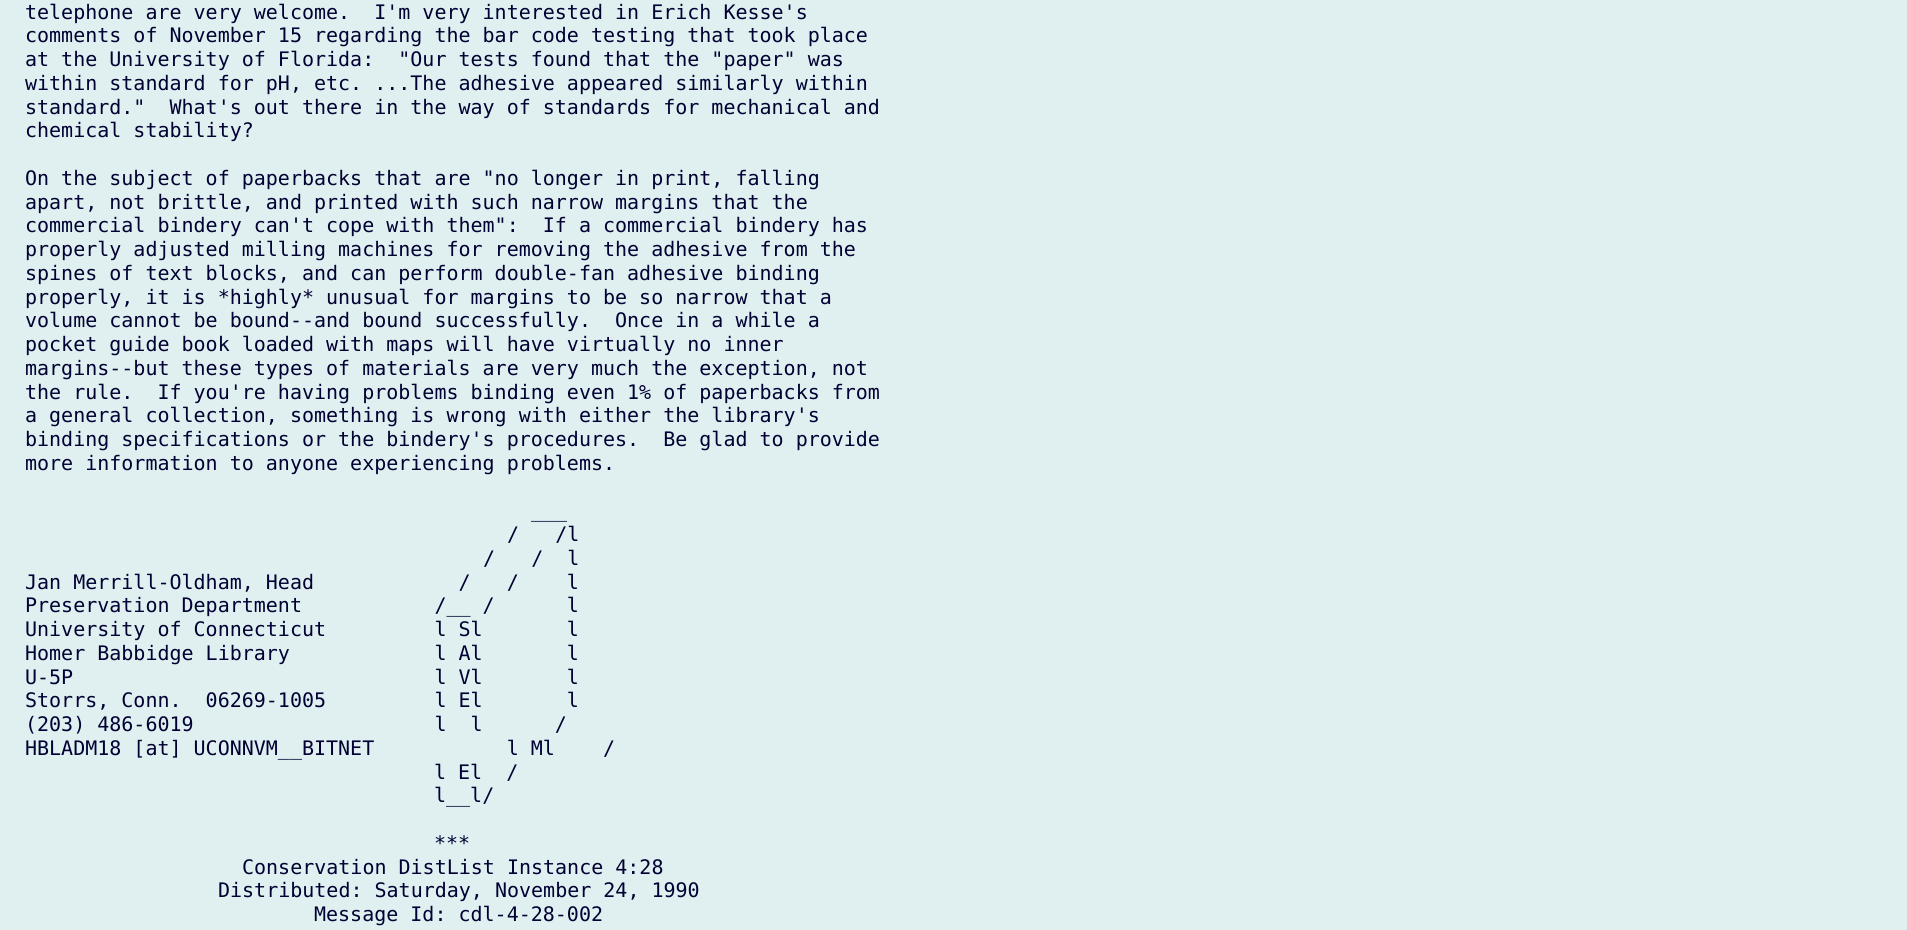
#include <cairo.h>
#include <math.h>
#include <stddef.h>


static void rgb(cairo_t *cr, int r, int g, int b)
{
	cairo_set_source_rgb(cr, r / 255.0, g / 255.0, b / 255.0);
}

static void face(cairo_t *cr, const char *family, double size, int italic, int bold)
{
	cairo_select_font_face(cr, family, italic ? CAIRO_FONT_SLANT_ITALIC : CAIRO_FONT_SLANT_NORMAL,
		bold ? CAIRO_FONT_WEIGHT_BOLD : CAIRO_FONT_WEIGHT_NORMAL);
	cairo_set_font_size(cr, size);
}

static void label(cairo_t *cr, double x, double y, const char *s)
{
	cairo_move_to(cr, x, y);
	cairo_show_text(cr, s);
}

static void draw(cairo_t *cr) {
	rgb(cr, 224, 240, 240);
	cairo_paint(cr);
	face(cr, "DejaVu Sans Mono", 20, 0, 0);
	rgb(cr, 0, 0, 51);
	label(cr, 25, 19, "telephone are very welcome.  I'm very interested in Erich Kesse's");
	label(cr, 25, 42, "comments of November 15 regarding the bar code testing that took place");
	label(cr, 25, 66, "at the University of Florida:  \"Our tests found that the \"paper\" was");
	label(cr, 25, 90, "within standard for pH, etc. ...The adhesive appeared similarly within");
	label(cr, 25, 114, "standard.\"  What's out there in the way of standards for mechanical and");
	label(cr, 25, 137, "chemical stability?");
	label(cr, 25, 185, "On the subject of paperbacks that are \"no longer in print, falling");
	label(cr, 25, 209, "apart, not brittle, and printed with such narrow margins that the");
	label(cr, 25, 232, "commercial bindery can't cope with them\":  If a commercial bindery has");
	label(cr, 25, 256, "properly adjusted milling machines for removing the adhesive from the");
	label(cr, 25, 280, "spines of text blocks, and can perform double-fan adhesive binding");
	label(cr, 25, 304, "properly, it is *highly* unusual for margins to be so narrow that a");
	label(cr, 25, 327, "volume cannot be bound--and bound successfully.  Once in a while a");
	label(cr, 25, 351, "pocket guide book loaded with maps will have virtually no inner");
	label(cr, 25, 375, "margins--but these types of materials are very much the exception, not");
	label(cr, 25, 399, "the rule.  If you're having problems binding even 1% of paperbacks from");
	label(cr, 25, 422, "a general collection, something is wrong with either the library's");
	label(cr, 25, 446, "binding specifications or the bindery's procedures.  Be glad to provide");
	label(cr, 25, 470, "more information to anyone experiencing problems.");
	label(cr, 531, 517, "___");
	label(cr, 507, 541, "/   /l");
	label(cr, 483, 565, "/   /  l");
	label(cr, 25, 589, "Jan Merrill-Oldham, Head            /   /    l");
	label(cr, 25, 612, "Preservation Department           /__ /      l");
	label(cr, 25, 636, "University of Connecticut         l Sl       l");
	label(cr, 25, 660, "Homer Babbidge Library            l Al       l");
	label(cr, 25, 684, "U-5P                              l Vl       l");
	label(cr, 25, 707, "Storrs, Conn.  06269-1005         l El       l");
	label(cr, 25, 731, "(203) 486-6019                    l  l      /");
	label(cr, 25, 755, "HBLADM18 [at] UCONNVM__BITNET           l Ml    /");
	label(cr, 434, 779, "l El  /");
	label(cr, 434, 802, "l__l/");
	label(cr, 434, 850, "***");
	label(cr, 242, 874, "Conservation DistList Instance 4:28");
	label(cr, 218, 897, "Distributed: Saturday, November 24, 1990");
	label(cr, 314, 921, "Message Id: cdl-4-28-002");
}

int main(void) {
	cairo_surface_t *surface = cairo_image_surface_create(CAIRO_FORMAT_RGB24, 1907, 930);
	cairo_t *cr = cairo_create(surface);
	cairo_font_options_t *options = cairo_font_options_create();
	cairo_font_options_set_hint_metrics(options, CAIRO_HINT_METRICS_OFF);
	cairo_font_options_set_hint_style(options, CAIRO_HINT_STYLE_NONE);
	cairo_set_font_options(cr, options);
	cairo_set_miter_limit(cr, 4);
	draw(cr);
	cairo_surface_write_to_png(surface, "render.png");
	cairo_font_options_destroy(options);
	cairo_destroy(cr);
	cairo_surface_destroy(surface);
	return 0;
}
